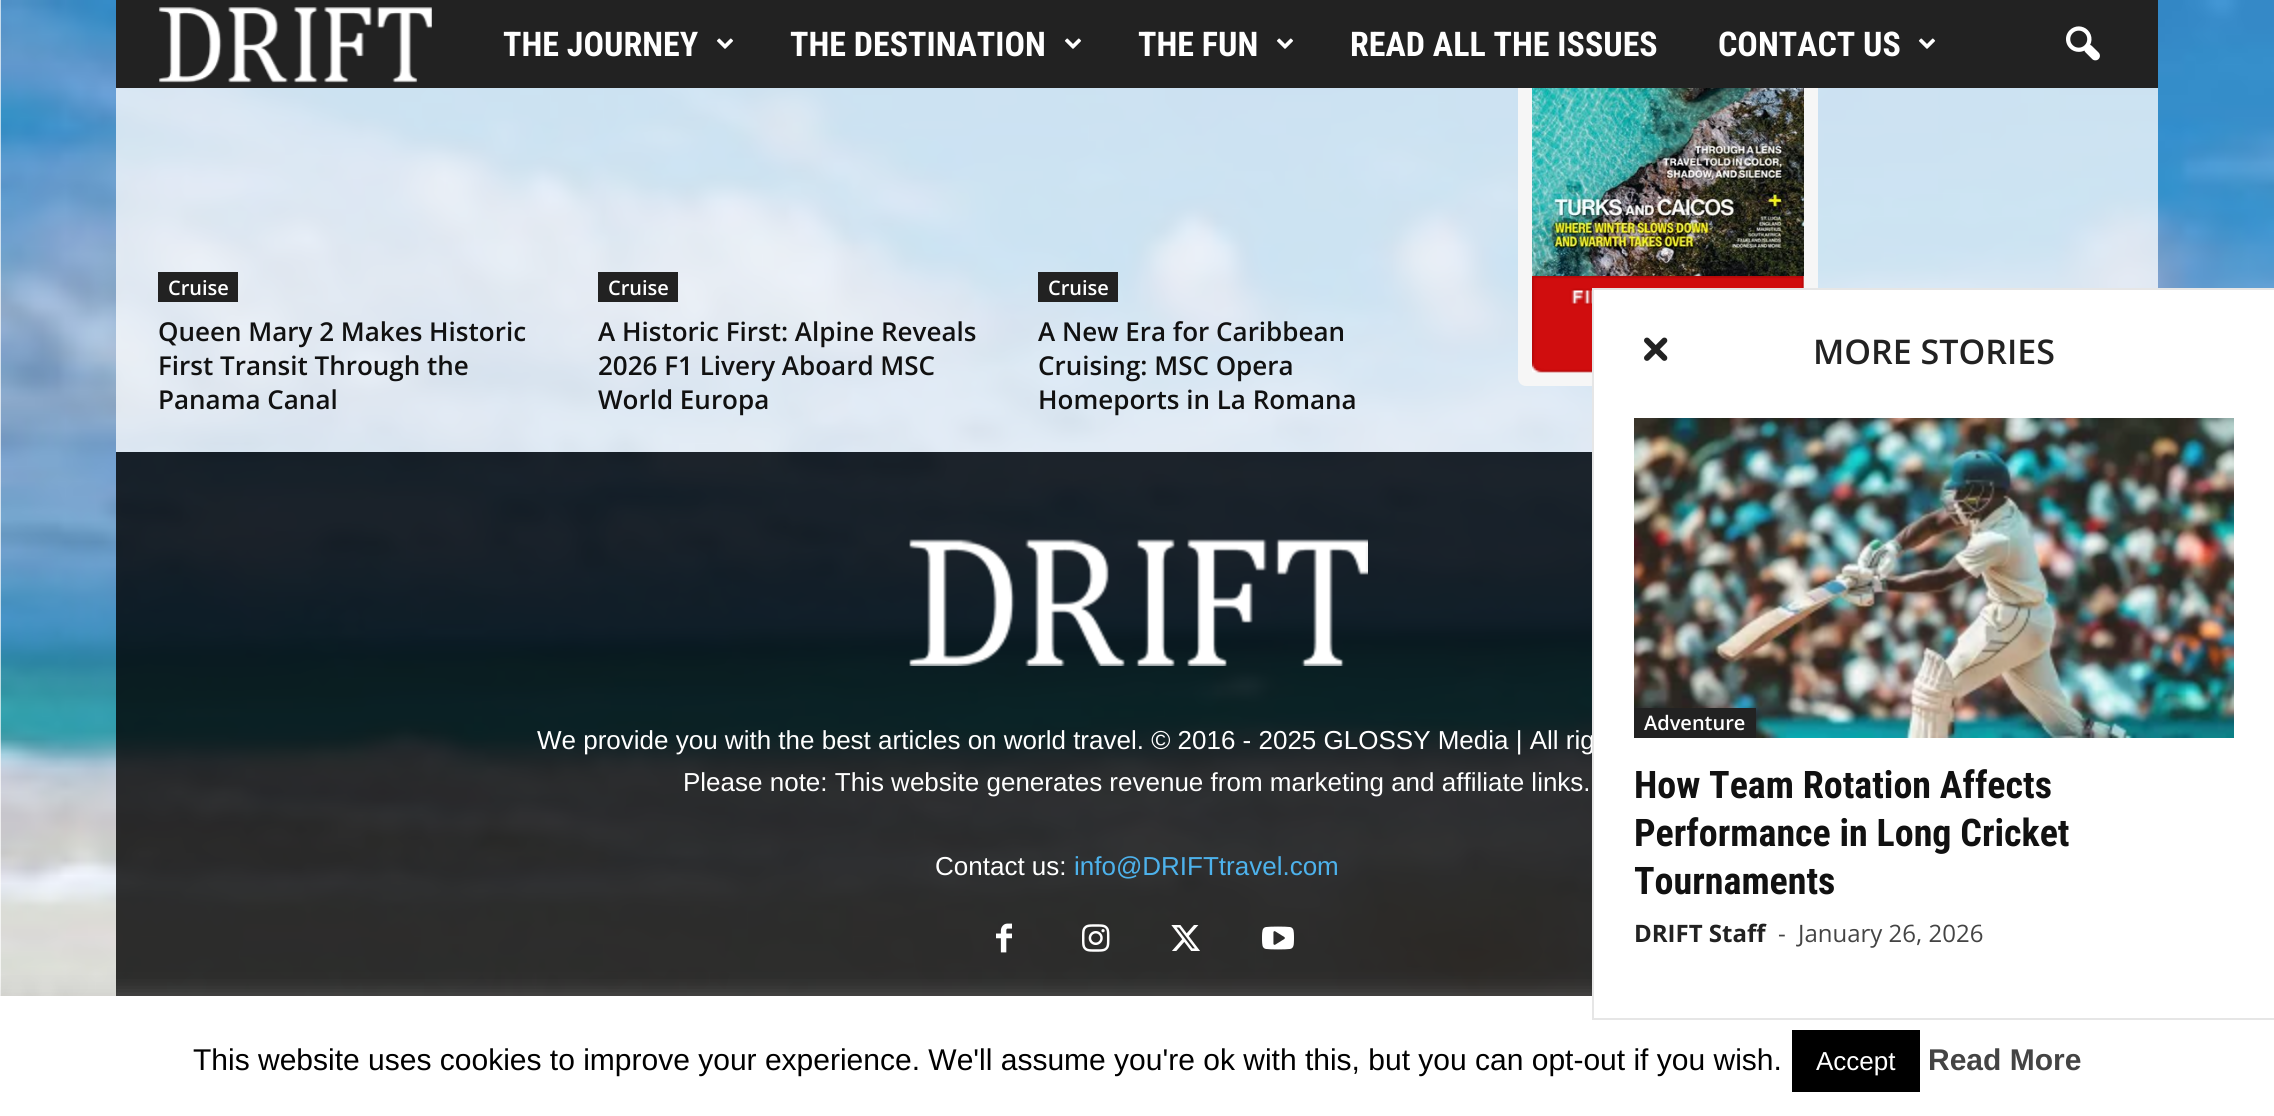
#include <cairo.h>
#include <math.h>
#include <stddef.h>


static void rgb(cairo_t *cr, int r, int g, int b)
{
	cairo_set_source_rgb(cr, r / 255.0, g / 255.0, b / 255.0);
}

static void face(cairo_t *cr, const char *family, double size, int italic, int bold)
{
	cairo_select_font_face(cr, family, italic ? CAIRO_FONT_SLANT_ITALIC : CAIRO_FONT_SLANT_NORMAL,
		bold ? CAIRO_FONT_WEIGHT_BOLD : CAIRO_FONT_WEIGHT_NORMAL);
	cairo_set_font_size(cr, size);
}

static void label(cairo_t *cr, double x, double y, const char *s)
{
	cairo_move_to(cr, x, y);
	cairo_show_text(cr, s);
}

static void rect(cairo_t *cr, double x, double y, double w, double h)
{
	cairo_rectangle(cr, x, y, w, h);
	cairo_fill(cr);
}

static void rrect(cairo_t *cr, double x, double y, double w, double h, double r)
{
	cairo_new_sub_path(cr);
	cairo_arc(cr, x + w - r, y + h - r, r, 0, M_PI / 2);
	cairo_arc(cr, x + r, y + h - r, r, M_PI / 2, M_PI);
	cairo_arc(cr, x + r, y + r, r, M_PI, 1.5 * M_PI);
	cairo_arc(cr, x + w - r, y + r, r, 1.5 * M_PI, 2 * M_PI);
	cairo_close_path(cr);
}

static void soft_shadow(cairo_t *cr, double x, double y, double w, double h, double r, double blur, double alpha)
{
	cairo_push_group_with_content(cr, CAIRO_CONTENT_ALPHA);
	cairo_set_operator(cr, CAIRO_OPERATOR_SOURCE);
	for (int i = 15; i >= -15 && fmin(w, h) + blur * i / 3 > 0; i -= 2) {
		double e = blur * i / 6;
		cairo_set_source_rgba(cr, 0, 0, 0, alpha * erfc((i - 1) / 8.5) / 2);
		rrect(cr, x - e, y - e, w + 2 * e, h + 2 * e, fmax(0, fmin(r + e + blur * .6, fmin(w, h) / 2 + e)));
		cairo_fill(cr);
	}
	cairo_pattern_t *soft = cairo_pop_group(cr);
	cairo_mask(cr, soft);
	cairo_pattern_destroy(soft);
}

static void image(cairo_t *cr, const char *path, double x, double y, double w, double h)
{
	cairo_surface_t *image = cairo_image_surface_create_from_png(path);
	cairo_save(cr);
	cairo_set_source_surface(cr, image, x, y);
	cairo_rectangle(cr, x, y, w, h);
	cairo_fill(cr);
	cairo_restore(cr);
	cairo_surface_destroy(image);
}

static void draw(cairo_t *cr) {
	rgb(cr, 255, 255, 255);
	cairo_paint(cr);
	image(cr, "image0.png", 0, 0, 2274, 996);
	cairo_set_source_rgba(cr, 1, 1, 1, 0.75);
	rect(cr, 116, 88, 2042, 364);
	rgb(cr, 246, 246, 246);
	rrect(cr, 1525, -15, 286, 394, 1);
	cairo_fill_preserve(cr);
	cairo_set_line_width(cr, 14);
	cairo_stroke(cr);
	rgb(cr, 34, 34, 34);
	rect(cr, 116, 0, 2042, 88);
	image(cr, "image1.png", 159, 7, 273, 76);
	face(cr, "Roboto Condensed", 34, 0, 1);
	rgb(cr, 255, 255, 255);
	label(cr, 503, 56, "THE JOURNEY");
	image(cr, "image2.png", 716, 38, 18, 11);
	label(cr, 790, 56, "THE DESTINATION");
	image(cr, "image2.png", 1064, 38, 18, 11);
	label(cr, 1138, 56, "THE FUN");
	image(cr, "image2.png", 1276, 38, 18, 11);
	label(cr, 1350, 56, "READ ALL THE ISSUES");
	label(cr, 1718, 56, "CONTACT US");
	image(cr, "image2.png", 1918, 38, 18, 11);
	image(cr, "image3.png", 2066, 26, 34, 35);
	rgb(cr, 34, 34, 34);
	rect(cr, 158, 272, 80, 30);
	face(cr, "Open Sans SemiBold", 20, 0, 0);
	rgb(cr, 255, 255, 255);
	label(cr, 168, 295, "Cruise");
	face(cr, "Open Sans SemiBold", 26, 0, 0);
	rgb(cr, 17, 17, 17);
	label(cr, 158, 341, "Queen Mary 2 Makes Historic");
	label(cr, 158, 375, "First Transit Through the");
	label(cr, 158, 409, "Panama Canal");
	rgb(cr, 34, 34, 34);
	rect(cr, 598, 272, 80, 30);
	face(cr, "Open Sans SemiBold", 20, 0, 0);
	rgb(cr, 255, 255, 255);
	label(cr, 608, 295, "Cruise");
	face(cr, "Open Sans SemiBold", 26, 0, 0);
	rgb(cr, 17, 17, 17);
	label(cr, 598, 341, "A Historic First: Alpine Reveals");
	label(cr, 598, 375, "2026 F1 Livery Aboard MSC");
	label(cr, 598, 409, "World Europa");
	rgb(cr, 34, 34, 34);
	rect(cr, 1038, 272, 80, 30);
	face(cr, "Open Sans SemiBold", 20, 0, 0);
	rgb(cr, 255, 255, 255);
	label(cr, 1048, 295, "Cruise");
	face(cr, "Open Sans SemiBold", 26, 0, 0);
	rgb(cr, 17, 17, 17);
	label(cr, 1038, 341, "A New Era for Caribbean");
	label(cr, 1038, 375, "Cruising: MSC Opera");
	label(cr, 1038, 409, "Homeports in La Romana");
	image(cr, "image4.png", 1532, 88, 272, 188);
	image(cr, "image5.png", 1532, 276, 272, 97);
	cairo_set_source_rgba(cr, 0, 0, 0, 0.8);
	rect(cr, 116, 452, 1476, 544);
	image(cr, "image6.png", 909, 539, 459, 127);
	face(cr, "Liberation Sans", 26, 0, 0);
	rgb(cr, 255, 255, 255);
	label(cr, 537, 749, "We provide you with the best articles on world travel. © 2016 - 2025 GLOSSY Media | All rig");
	label(cr, 683, 791, "Please note: This website generates revenue from marketing and affiliate links.");
	label(cr, 935, 875, "Contact us:");
	rgb(cr, 77, 178, 236);
	label(cr, 1074, 875, "info@DRIFTtravel.com");
	image(cr, "image7.png", 996, 923, 16, 30);
	image(cr, "image8.png", 1082, 924, 28, 28);
	image(cr, "image9.png", 1171, 925, 29, 26);
	image(cr, "image10.png", 1262, 926, 32, 24);
	rgb(cr, 172, 171, 171);
	soft_shadow(cr, 0, 994, 2274, 120, 0, 10, 0.3);
	rgb(cr, 255, 255, 255);
	rect(cr, 1594, 290, 680, 706);
	rgb(cr, 230, 230, 230);
	rect(cr, 1592, 288, 682, 2);
	rgb(cr, 255, 255, 255);
	rect(cr, 0, 996, 2274, 120);
	rgb(cr, 230, 230, 230);
	rect(cr, 1592, 1018, 682, 2);
	rect(cr, 1592, 288, 2, 732);
	image(cr, "image11.png", 1644, 337, 24, 24);
	face(cr, "Open Sans SemiBold", 34, 0, 0);
	rgb(cr, 34, 34, 34);
	label(cr, 1813, 364, "MORE STORIES");
	image(cr, "image12.png", 1634, 418, 600, 320);
	rect(cr, 1634, 708, 122, 30);
	face(cr, "Open Sans SemiBold", 20, 0, 0);
	rgb(cr, 255, 255, 255);
	label(cr, 1644, 730, "Adventure");
	face(cr, "Roboto Condensed", 38, 0, 1);
	rgb(cr, 17, 17, 17);
	label(cr, 1634, 798, "How Team Rotation Affects");
	label(cr, 1634, 846, "Performance in Long Cricket");
	label(cr, 1634, 894, "Tournaments");
	face(cr, "Open Sans", 24, 0, 1);
	rgb(cr, 34, 34, 34);
	label(cr, 1634, 942, "DRIFT Staff");
	face(cr, "Open Sans", 24, 0, 0);
	rgb(cr, 68, 68, 68);
	label(cr, 1778, 942, "-");
	label(cr, 1798, 942, "January 26, 2026");
	face(cr, "Liberation Sans", 30, 0, 0);
	rgb(cr, 0, 0, 0);
	label(cr, 193, 1070, "This website uses cookies to improve your experience. We'll assume you're ok with this, but you can opt-out if you wish.");
	rect(cr, 1792, 1030, 128, 62);
	face(cr, "Liberation Sans", 26, 0, 0);
	rgb(cr, 255, 255, 255);
	label(cr, 1816, 1070, "Accept");
	face(cr, "Liberation Sans", 30, 0, 1);
	rgb(cr, 68, 68, 68);
	label(cr, 1928, 1070, "Read More");
}

int main(void) {
	cairo_surface_t *surface = cairo_image_surface_create(CAIRO_FORMAT_RGB24, 2274, 1116);
	cairo_t *cr = cairo_create(surface);
	cairo_font_options_t *options = cairo_font_options_create();
	cairo_font_options_set_hint_metrics(options, CAIRO_HINT_METRICS_OFF);
	cairo_font_options_set_hint_style(options, CAIRO_HINT_STYLE_NONE);
	cairo_set_font_options(cr, options);
	cairo_set_miter_limit(cr, 4);
	draw(cr);
	cairo_surface_write_to_png(surface, "render.png");
	cairo_font_options_destroy(options);
	cairo_destroy(cr);
	cairo_surface_destroy(surface);
	return 0;
}
